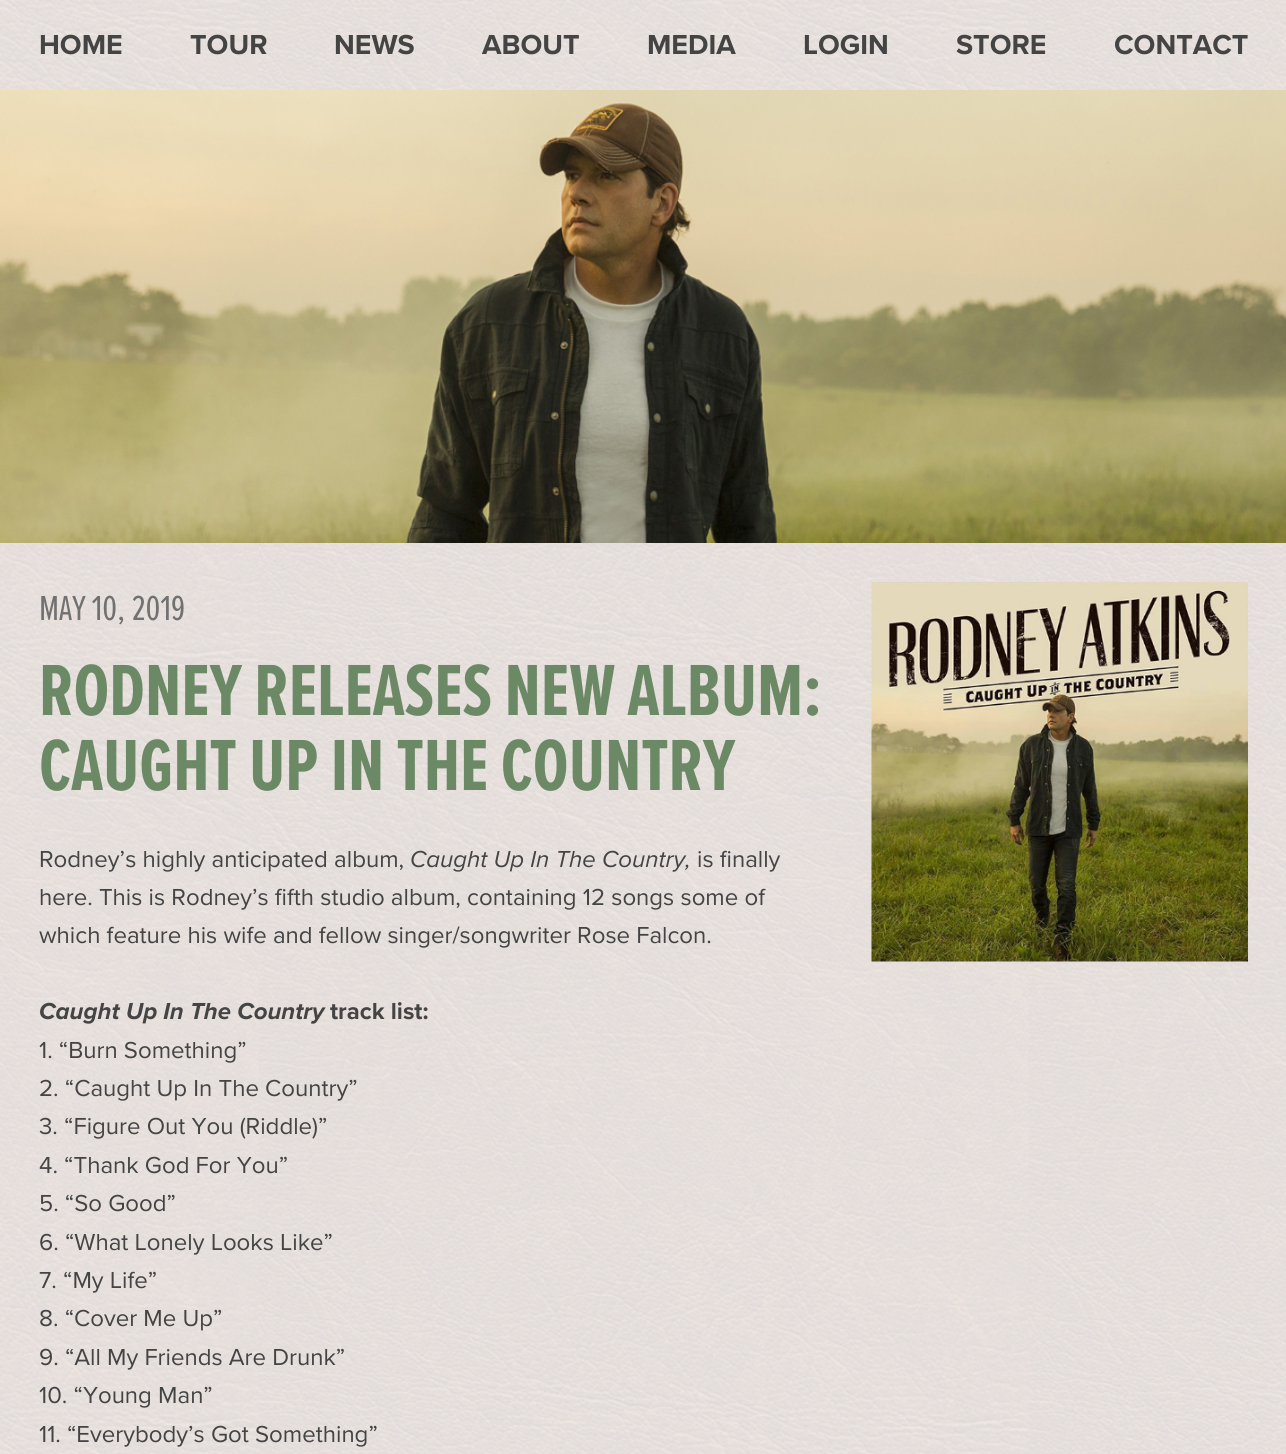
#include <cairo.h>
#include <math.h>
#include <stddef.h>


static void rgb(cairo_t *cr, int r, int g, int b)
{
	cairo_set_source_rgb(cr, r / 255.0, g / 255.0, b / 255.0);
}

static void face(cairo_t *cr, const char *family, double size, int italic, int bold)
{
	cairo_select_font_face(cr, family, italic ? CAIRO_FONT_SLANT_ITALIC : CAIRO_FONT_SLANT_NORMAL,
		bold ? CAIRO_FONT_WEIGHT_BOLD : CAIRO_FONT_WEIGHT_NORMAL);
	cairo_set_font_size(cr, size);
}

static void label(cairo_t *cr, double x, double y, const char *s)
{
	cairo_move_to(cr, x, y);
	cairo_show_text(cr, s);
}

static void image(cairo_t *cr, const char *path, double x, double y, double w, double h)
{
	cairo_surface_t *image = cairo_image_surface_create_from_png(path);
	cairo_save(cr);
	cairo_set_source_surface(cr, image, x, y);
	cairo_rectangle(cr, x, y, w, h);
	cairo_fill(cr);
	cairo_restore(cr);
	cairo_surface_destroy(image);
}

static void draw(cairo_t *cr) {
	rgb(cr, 255, 255, 255);
	cairo_paint(cr);
	image(cr, "image0.png", 0, 543, 1286, 911);
	image(cr, "image1.png", 0, 0, 1286, 90);
	face(cr, "Proxima Nova", 28.5, 0, 1);
	rgb(cr, 68, 68, 68);
	label(cr, 39, 54, "HOME");
	label(cr, 190, 54, "TOUR");
	label(cr, 334, 54, "NEWS");
	label(cr, 482, 54, "ABOUT");
	label(cr, 647, 54, "MEDIA");
	label(cr, 803, 54, "LOGIN");
	label(cr, 956, 54, "STORE");
	label(cr, 1114, 54, "CONTACT");
	image(cr, "image2.png", 0, 90, 1286, 453);
	face(cr, "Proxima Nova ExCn", 36, 0, 0);
	rgb(cr, 113, 113, 113);
	label(cr, 39, 620, "MAY 10, 2019");
	face(cr, "Proxima Nova ExCn", 75, 0, 1);
	rgb(cr, 108, 137, 102);
	label(cr, 39, 715, "RODNEY RELEASES NEW ALBUM:");
	label(cr, 39, 790, "CAUGHT UP IN THE COUNTRY");
	face(cr, "Proxima Nova", 24, 0, 0);
	rgb(cr, 68, 68, 68);
	label(cr, 39, 867, "Rodney’s highly anticipated album,");
	face(cr, "Proxima Nova", 24, 1, 0);
	label(cr, 410, 867, "Caught Up In The Country,");
	face(cr, "Proxima Nova", 24, 0, 0);
	label(cr, 697, 867, "is finally");
	label(cr, 39, 905, "here. This is Rodney’s fifth studio album, containing 12 songs some of");
	label(cr, 39, 943, "which feature his wife and fellow singer/songwriter Rose Falcon.");
	face(cr, "Proxima Nova", 24, 1, 1);
	label(cr, 39, 1019, "Caught Up In The Country");
	face(cr, "Proxima Nova", 24, 0, 1);
	label(cr, 330, 1019, "track list:");
	face(cr, "Proxima Nova", 24, 0, 0);
	label(cr, 39, 1058, "1. “Burn Something”");
	label(cr, 39, 1096, "2. “Caught Up In The Country”");
	label(cr, 39, 1134, "3. “Figure Out You (Riddle)”");
	label(cr, 39, 1173, "4. “Thank God For You”");
	label(cr, 39, 1211, "5. “So Good”");
	label(cr, 39, 1250, "6. “What Lonely Looks Like”");
	label(cr, 39, 1288, "7. “My Life”");
	label(cr, 39, 1326, "8. “Cover Me Up”");
	label(cr, 39, 1365, "9. “All My Friends Are Drunk”");
	label(cr, 39, 1403, "10. “Young Man”");
	label(cr, 39, 1442, "11. “Everybody’s Got Something”");
	image(cr, "image3.png", 871, 582, 377, 380);
}

int main(void) {
	cairo_surface_t *surface = cairo_image_surface_create(CAIRO_FORMAT_RGB24, 1286, 1454);
	cairo_t *cr = cairo_create(surface);
	cairo_font_options_t *options = cairo_font_options_create();
	cairo_font_options_set_hint_metrics(options, CAIRO_HINT_METRICS_OFF);
	cairo_font_options_set_hint_style(options, CAIRO_HINT_STYLE_NONE);
	cairo_set_font_options(cr, options);
	cairo_set_miter_limit(cr, 4);
	draw(cr);
	cairo_surface_write_to_png(surface, "render.png");
	cairo_font_options_destroy(options);
	cairo_destroy(cr);
	cairo_surface_destroy(surface);
	return 0;
}
